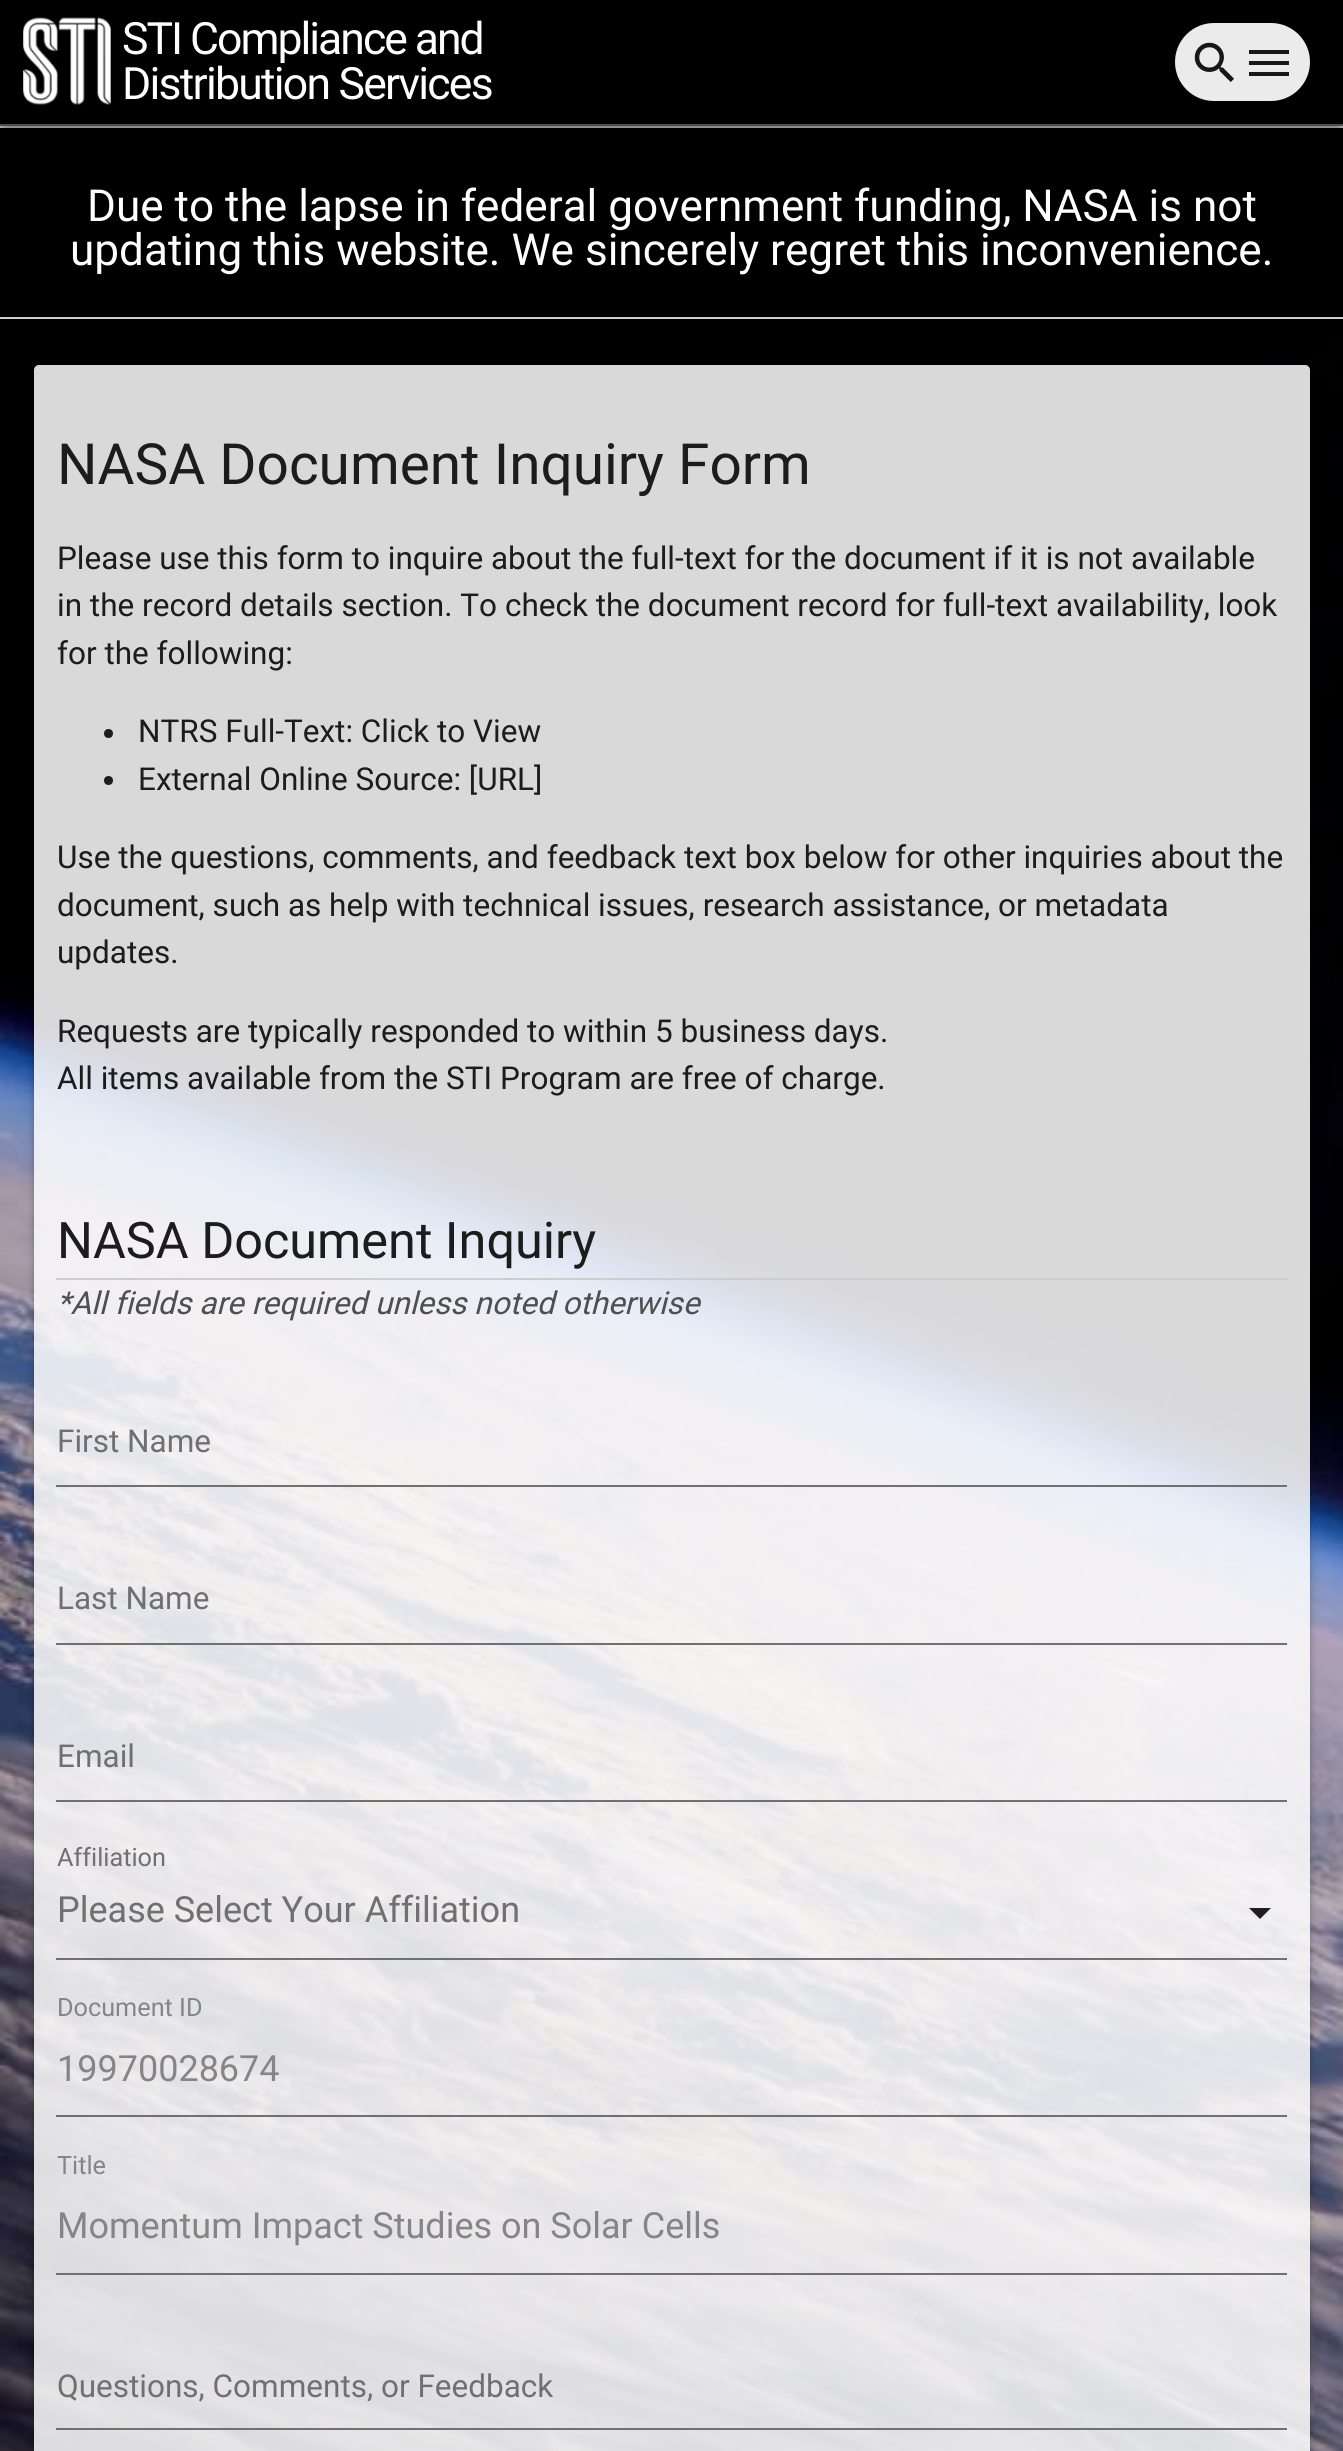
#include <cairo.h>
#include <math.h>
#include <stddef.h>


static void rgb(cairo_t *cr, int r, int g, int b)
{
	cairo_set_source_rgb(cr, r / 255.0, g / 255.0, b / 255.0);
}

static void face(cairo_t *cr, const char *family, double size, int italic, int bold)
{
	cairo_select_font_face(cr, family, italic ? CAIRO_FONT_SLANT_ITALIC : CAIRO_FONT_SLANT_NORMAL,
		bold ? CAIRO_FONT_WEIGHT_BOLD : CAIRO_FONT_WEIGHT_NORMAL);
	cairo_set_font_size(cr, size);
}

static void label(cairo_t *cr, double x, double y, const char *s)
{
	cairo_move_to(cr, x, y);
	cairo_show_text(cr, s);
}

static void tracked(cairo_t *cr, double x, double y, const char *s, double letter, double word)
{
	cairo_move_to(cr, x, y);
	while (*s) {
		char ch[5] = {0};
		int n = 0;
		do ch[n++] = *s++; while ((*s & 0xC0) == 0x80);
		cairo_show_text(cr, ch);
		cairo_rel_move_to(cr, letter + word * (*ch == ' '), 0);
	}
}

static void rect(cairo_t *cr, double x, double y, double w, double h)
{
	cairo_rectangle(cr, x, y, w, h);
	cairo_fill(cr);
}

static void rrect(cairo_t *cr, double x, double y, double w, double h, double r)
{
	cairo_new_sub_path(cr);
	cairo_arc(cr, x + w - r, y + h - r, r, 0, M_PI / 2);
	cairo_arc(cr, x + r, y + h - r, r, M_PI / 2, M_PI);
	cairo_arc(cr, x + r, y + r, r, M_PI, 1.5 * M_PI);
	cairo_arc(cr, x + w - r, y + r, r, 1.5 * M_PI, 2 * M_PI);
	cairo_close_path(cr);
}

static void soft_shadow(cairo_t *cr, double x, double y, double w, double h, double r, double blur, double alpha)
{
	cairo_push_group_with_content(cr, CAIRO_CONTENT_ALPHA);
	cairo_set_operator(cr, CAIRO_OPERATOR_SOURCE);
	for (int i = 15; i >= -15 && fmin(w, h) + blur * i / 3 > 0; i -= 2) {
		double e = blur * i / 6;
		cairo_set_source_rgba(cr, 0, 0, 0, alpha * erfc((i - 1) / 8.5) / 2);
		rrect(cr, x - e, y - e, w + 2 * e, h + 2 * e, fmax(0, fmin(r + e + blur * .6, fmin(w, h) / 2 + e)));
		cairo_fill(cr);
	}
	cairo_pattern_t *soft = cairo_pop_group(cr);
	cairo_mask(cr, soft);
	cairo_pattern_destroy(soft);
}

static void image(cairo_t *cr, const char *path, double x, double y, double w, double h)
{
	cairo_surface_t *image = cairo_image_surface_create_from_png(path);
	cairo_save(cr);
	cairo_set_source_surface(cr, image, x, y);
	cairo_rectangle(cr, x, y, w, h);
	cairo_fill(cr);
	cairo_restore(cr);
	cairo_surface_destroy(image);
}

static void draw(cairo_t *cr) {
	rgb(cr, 0, 0, 0);
	cairo_paint(cr);
	rgb(cr, 206, 206, 206);
	rect(cr, 0, 126, 1343, 2);
	rgb(cr, 0, 0, 0);
	soft_shadow(cr, 0, 2, 1343, 126, 0, 5.5, 0.2);
	soft_shadow(cr, 5, 11, 1334, 117, 0, 1, 0.12);
	soft_shadow(cr, 0, 5, 1343, 126, 0, 2, 0.14);
	rgb(cr, 77, 77, 77);
	rect(cr, 0, 124, 1343, 2);
	image(cr, "image0.png", 23, 17, 88, 88);
	face(cr, "Roboto", 44.5, 0, 0);
	rgb(cr, 255, 255, 255);
	tracked(cr, 122, 54, "STI Compliance and", -2, 0);
	tracked(cr, 122, 99, "Distribution Services", -1.75, 0);
	rgb(cr, 235, 235, 235);
	rrect(cr, 1175, 23, 135, 78, 39);
	cairo_fill(cr);
	image(cr, "image1.png", 1194, 42, 40, 40);
	rgb(cr, 24, 24, 24);
	cairo_new_path(cr);
	cairo_move_to(cr, 1249, 50);
	cairo_line_to(cr, 1289, 50);
	cairo_line_to(cr, 1289, 54);
	cairo_line_to(cr, 1249, 54);
	cairo_close_path(cr);
	cairo_move_to(cr, 1249, 65);
	cairo_line_to(cr, 1249, 61);
	cairo_line_to(cr, 1289, 61);
	cairo_line_to(cr, 1289, 65);
	cairo_close_path(cr);
	cairo_move_to(cr, 1249, 76);
	cairo_line_to(cr, 1249, 72);
	cairo_line_to(cr, 1289, 72);
	cairo_line_to(cr, 1289, 76);
	cairo_close_path(cr);
	cairo_fill(cr);
	rgb(cr, 206, 206, 206);
	rect(cr, 0, 317, 1343, 2);
	face(cr, "Roboto", 44.1, 0, 0);
	rgb(cr, 255, 255, 255);
	label(cr, 87, 221, "Due to the lapse in federal government funding, NASA is not");
	label(cr, 70, 265, "updating this website. We sincerely regret this inconvenience.");
	image(cr, "image2.png", 0, 320, 1343, 2131);
	cairo_save(cr);
	cairo_set_fill_rule(cr, CAIRO_FILL_RULE_EVEN_ODD);
	cairo_new_path(cr);
	cairo_move_to(cr, 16, 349);
	cairo_line_to(cr, 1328, 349);
	cairo_line_to(cr, 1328, 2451);
	cairo_line_to(cr, 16, 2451);
	cairo_close_path(cr);
	cairo_move_to(cr, 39, 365);
	cairo_line_to(cr, 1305, 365);
	cairo_curve_to(cr, 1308, 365, 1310, 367, 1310, 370);
	cairo_line_to(cr, 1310, 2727);
	cairo_curve_to(cr, 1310, 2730, 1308, 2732, 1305, 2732);
	cairo_line_to(cr, 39, 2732);
	cairo_curve_to(cr, 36, 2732, 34, 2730, 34, 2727);
	cairo_line_to(cr, 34, 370);
	cairo_curve_to(cr, 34, 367, 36, 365, 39, 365);
	cairo_close_path(cr);
	cairo_clip(cr);
	rgb(cr, 0, 0, 0);
	soft_shadow(cr, 34, 367, 1276, 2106, 5, 5.5, 0.2);
	cairo_restore(cr);
	cairo_save(cr);
	cairo_set_fill_rule(cr, CAIRO_FILL_RULE_EVEN_ODD);
	cairo_new_path(cr);
	cairo_move_to(cr, 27, 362);
	cairo_line_to(cr, 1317, 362);
	cairo_line_to(cr, 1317, 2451);
	cairo_line_to(cr, 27, 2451);
	cairo_close_path(cr);
	cairo_move_to(cr, 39, 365);
	cairo_line_to(cr, 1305, 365);
	cairo_curve_to(cr, 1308, 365, 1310, 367, 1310, 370);
	cairo_line_to(cr, 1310, 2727);
	cairo_curve_to(cr, 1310, 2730, 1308, 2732, 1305, 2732);
	cairo_line_to(cr, 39, 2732);
	cairo_curve_to(cr, 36, 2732, 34, 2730, 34, 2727);
	cairo_line_to(cr, 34, 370);
	cairo_curve_to(cr, 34, 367, 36, 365, 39, 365);
	cairo_close_path(cr);
	cairo_clip(cr);
	rgb(cr, 0, 0, 0);
	soft_shadow(cr, 34, 369, 1276, 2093, 5, 2, 0.14);
	cairo_restore(cr);
	cairo_set_source_rgba(cr, 1, 1, 1, 0.85);
	rrect(cr, 34, 365, 1276, 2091, 5);
	cairo_fill(cr);
	face(cr, "Roboto", 56.75, 0, 0);
	rgb(cr, 28, 28, 28);
	label(cr, 57, 484, "NASA Document Inquiry Form");
	face(cr, "Roboto", 31.5, 0, 0);
	label(cr, 57, 569, "Please use this form to inquire about the full-text for the document if it is not available");
	label(cr, 57, 616, "in the record details section. To check the document record for full-text availability, look");
	label(cr, 57, 664, "for the following:");
	cairo_new_path(cr);
	cairo_arc(cr, 108.5, 733.5, 4.5, 0, 2 * M_PI);
	cairo_fill(cr);
	label(cr, 138, 742, "NTRS Full-Text: Click to View");
	cairo_new_path(cr);
	cairo_arc(cr, 108.5, 780.5, 4.5, 0, 2 * M_PI);
	cairo_fill(cr);
	label(cr, 138, 790, "External Online Source: [URL]");
	label(cr, 57, 868, "Use the questions, comments, and feedback text box below for other inquiries about the");
	label(cr, 57, 916, "document, such as help with technical issues, research assistance, or metadata");
	label(cr, 57, 963, "updates.");
	label(cr, 57, 1042, "Requests are typically responded to within 5 business days.");
	label(cr, 57, 1089, "All items available from the STI Program are free of charge.");
	rgb(cr, 205, 205, 205);
	rect(cr, 56, 1278, 1231, 2);
	face(cr, "Roboto", 50.4, 0, 0);
	rgb(cr, 28, 28, 28);
	label(cr, 57, 1258, "NASA Document Inquiry");
	face(cr, "Roboto", 31.5, 1, 0);
	rgb(cr, 78, 79, 80);
	label(cr, 57, 1314, "*All fields are required unless noted otherwise");
	face(cr, "Roboto", 31.5, 0, 0);
	rgb(cr, 112, 112, 112);
	label(cr, 57, 1452, "First Name");
	rect(cr, 56, 1485, 1231, 2);
	label(cr, 57, 1609, "Last Name");
	rect(cr, 56, 1643, 1231, 2);
	label(cr, 57, 1767, "Email");
	rect(cr, 56, 1800, 1231, 2);
	face(cr, "Roboto", 25.25, 0, 0);
	label(cr, 57, 1866, "Affiliation");
	rect(cr, 56, 1958, 1231, 2);
	face(cr, "Roboto", 36, 0, 0);
	label(cr, 57, 1922, "Please Select Your Affiliation");
	cairo_set_source_rgba(cr, 0, 0, 0, 0.87);
	cairo_new_path(cr);
	cairo_move_to(cr, 1249, 1908);
	cairo_line_to(cr, 1260, 1919);
	cairo_line_to(cr, 1271, 1908);
	cairo_close_path(cr);
	cairo_fill(cr);
	face(cr, "Roboto", 25.25, 0, 0);
	rgb(cr, 134, 133, 134);
	label(cr, 57, 2016, "Document ID");
	rgb(cr, 112, 112, 112);
	rect(cr, 56, 2115, 1231, 2);
	face(cr, "Roboto", 36, 0, 0);
	rgb(cr, 134, 133, 134);
	label(cr, 57, 2081, "19970028674");
	face(cr, "Roboto", 25.25, 0, 0);
	label(cr, 57, 2174, "Title");
	rgb(cr, 112, 112, 112);
	rect(cr, 56, 2273, 1231, 2);
	face(cr, "Roboto", 36, 0, 0);
	rgb(cr, 134, 133, 134);
	label(cr, 57, 2238, "Momentum Impact Studies on Solar Cells");
	face(cr, "Roboto", 31.5, 0, 0);
	rgb(cr, 112, 112, 112);
	label(cr, 57, 2397, "Questions, Comments, or Feedback");
	rect(cr, 56, 2428, 1231, 2);
}

int main(void) {
	cairo_surface_t *surface = cairo_image_surface_create(CAIRO_FORMAT_RGB24, 1343, 2451);
	cairo_t *cr = cairo_create(surface);
	cairo_font_options_t *options = cairo_font_options_create();
	cairo_font_options_set_hint_metrics(options, CAIRO_HINT_METRICS_OFF);
	cairo_font_options_set_hint_style(options, CAIRO_HINT_STYLE_NONE);
	cairo_set_font_options(cr, options);
	cairo_set_miter_limit(cr, 4);
	draw(cr);
	cairo_surface_write_to_png(surface, "render.png");
	cairo_font_options_destroy(options);
	cairo_destroy(cr);
	cairo_surface_destroy(surface);
	return 0;
}
